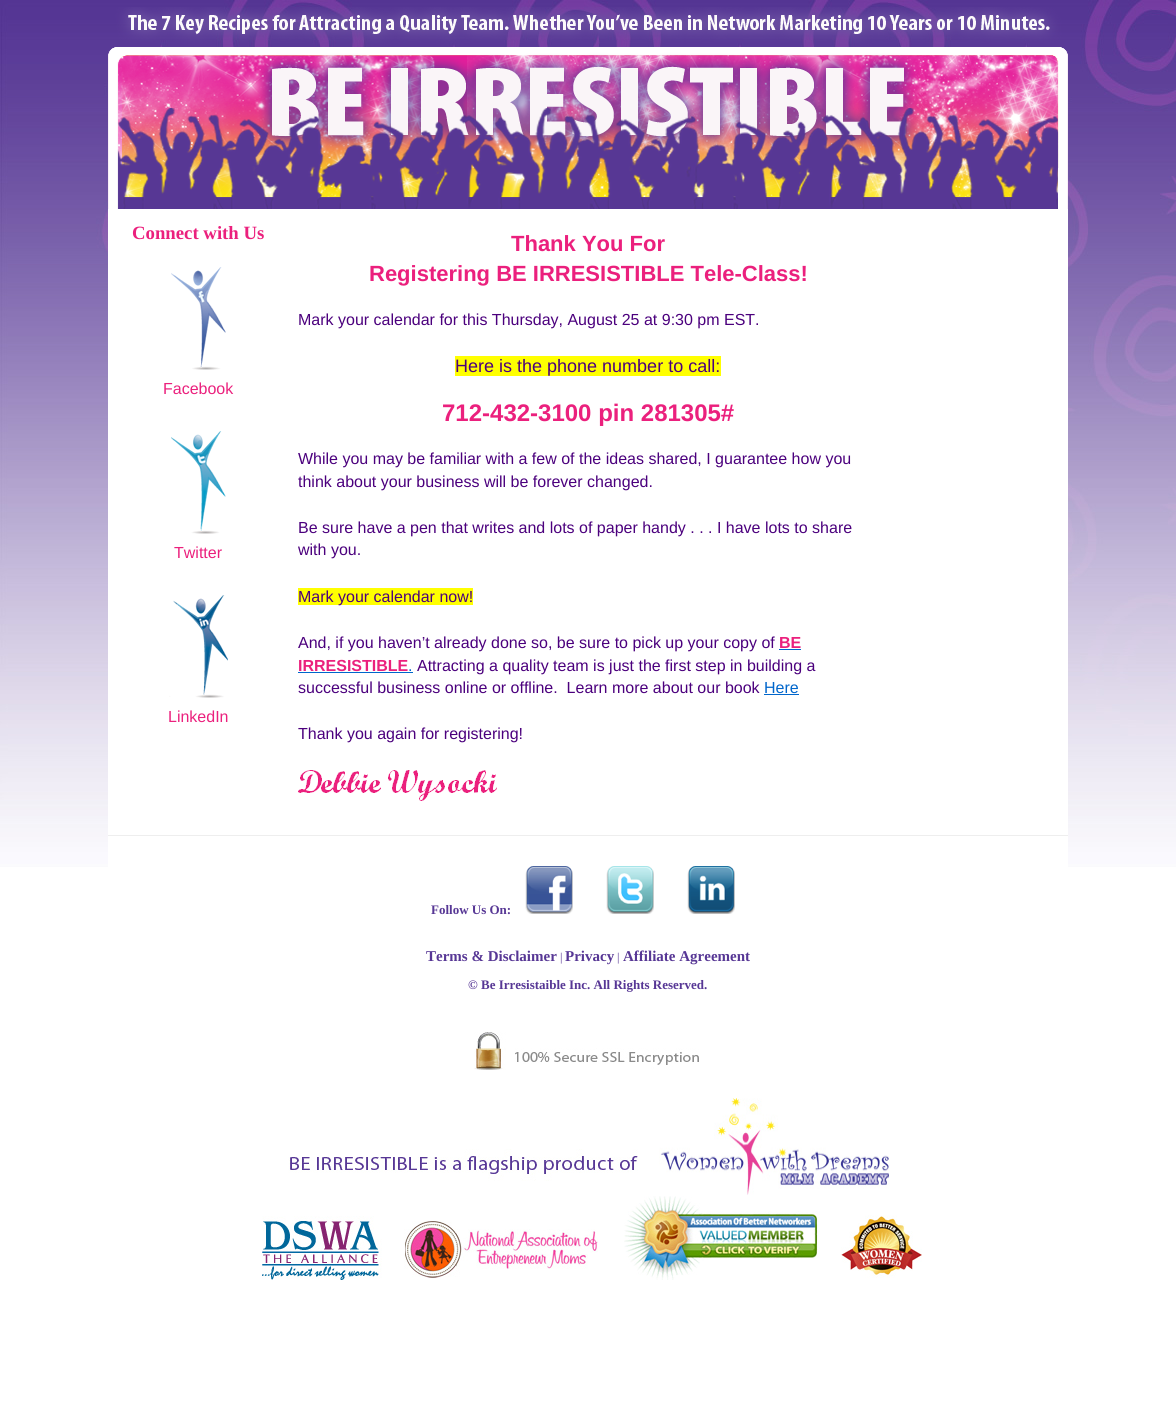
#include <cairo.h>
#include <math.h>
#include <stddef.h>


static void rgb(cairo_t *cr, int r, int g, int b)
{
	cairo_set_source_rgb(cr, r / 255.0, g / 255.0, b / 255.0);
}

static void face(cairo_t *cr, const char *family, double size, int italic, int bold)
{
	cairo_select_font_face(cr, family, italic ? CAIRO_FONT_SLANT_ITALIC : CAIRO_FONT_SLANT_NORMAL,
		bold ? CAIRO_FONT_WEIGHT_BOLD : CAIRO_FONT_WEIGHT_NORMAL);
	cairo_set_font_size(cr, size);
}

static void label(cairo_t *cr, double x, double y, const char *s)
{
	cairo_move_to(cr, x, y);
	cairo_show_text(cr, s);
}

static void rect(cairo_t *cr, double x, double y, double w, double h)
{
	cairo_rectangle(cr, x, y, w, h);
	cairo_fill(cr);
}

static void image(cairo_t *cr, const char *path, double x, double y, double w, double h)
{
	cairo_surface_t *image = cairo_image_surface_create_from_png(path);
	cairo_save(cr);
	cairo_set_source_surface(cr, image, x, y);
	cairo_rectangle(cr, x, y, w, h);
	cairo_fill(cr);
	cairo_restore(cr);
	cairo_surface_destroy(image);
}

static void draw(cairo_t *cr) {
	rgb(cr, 255, 255, 255);
	cairo_paint(cr);
	image(cr, "image0.png", 0, 0, 1176, 867);
	image(cr, "image1.png", 108, 7, 960, 202);
	rgb(cr, 255, 255, 255);
	rect(cr, 108, 209, 960, 626);
	face(cr, "Liberation Serif", 18.75, 0, 1);
	rgb(cr, 235, 32, 125);
	label(cr, 132, 239, "Connect with Us");
	image(cr, "image2.png", 171, 267, 55, 103);
	face(cr, "Liberation Sans", 16, 0, 0);
	label(cr, 163, 394, "Facebook");
	image(cr, "image3.png", 171, 431, 55, 103);
	label(cr, 174, 558, "Twitter");
	image(cr, "image4.png", 169, 595, 59, 103);
	label(cr, 168, 722, "LinkedIn");
	face(cr, "Liberation Sans", 22, 0, 1);
	label(cr, 511, 251, "Thank You For");
	label(cr, 369, 281, "Registering BE IRRESISTIBLE Tele-Class!");
	face(cr, "Liberation Sans", 16, 0, 0);
	rgb(cr, 75, 0, 125);
	label(cr, 298, 325, "Mark your calendar for this Thursday, August 25 at 9:30 pm EST.");
	rgb(cr, 255, 255, 0);
	rect(cr, 455, 356, 266, 20);
	face(cr, "Liberation Sans", 18, 0, 0);
	rgb(cr, 75, 0, 125);
	label(cr, 455, 372, "Here is the phone number to call:");
	face(cr, "Liberation Sans", 24, 0, 1);
	rgb(cr, 235, 32, 125);
	label(cr, 442, 421, "712-432-3100 pin 281305#");
	face(cr, "Liberation Sans", 16, 0, 0);
	rgb(cr, 75, 0, 125);
	label(cr, 298, 464, "While you may be familiar with a few of the ideas shared, I guarantee how you");
	label(cr, 298, 487, "think about your business will be forever changed.");
	label(cr, 298, 533, "Be sure have a pen that writes and lots of paper handy . . . I have lots to share");
	label(cr, 298, 555, "with you.");
	rgb(cr, 255, 255, 0);
	rect(cr, 298, 588, 175, 17);
	rgb(cr, 75, 0, 125);
	label(cr, 298, 602, "Mark your calendar now!");
	label(cr, 298, 648, "And, if you haven’t already done so, be sure to pick up your copy of");
	face(cr, "Liberation Sans", 16, 0, 1);
	rgb(cr, 235, 32, 125);
	label(cr, 779, 648, "BE");
	rgb(cr, 0, 102, 204);
	rect(cr, 779, 649, 22, 1);
	rgb(cr, 235, 32, 125);
	label(cr, 298, 671, "IRRESISTIBLE");
	face(cr, "Liberation Sans", 16, 0, 0);
	rgb(cr, 0, 102, 204);
	label(cr, 408, 671, ".");
	rect(cr, 298, 672, 115, 1);
	rgb(cr, 75, 0, 125);
	label(cr, 417, 671, "Attracting a quality team is just the first step in building a");
	label(cr, 298, 693, "successful business online or offline.  Learn more about our book");
	rgb(cr, 0, 102, 204);
	label(cr, 764, 693, "Here");
	rect(cr, 764, 694, 35, 1);
	rgb(cr, 75, 0, 125);
	label(cr, 298, 739, "Thank you again for registering!");
	image(cr, "image5.png", 298, 770, 199, 31);
	rgb(cr, 255, 255, 255);
	rect(cr, 108, 836, 960, 31);
	rgb(cr, 238, 238, 238);
	rect(cr, 108, 835, 960, 1);
	face(cr, "Liberation Serif", 13, 0, 1);
	rgb(cr, 87, 55, 149);
	label(cr, 431, 914, "Follow Us On:");
	image(cr, "image6.png", 525, 866, 48, 48);
	image(cr, "image7.png", 606, 866, 48, 48);
	image(cr, "image8.png", 687, 866, 48, 48);
	face(cr, "Liberation Serif", 15, 0, 1);
	label(cr, 426, 961, "Terms & Disclaimer");
	face(cr, "Liberation Serif", 12, 0, 0);
	label(cr, 560, 961, "|");
	face(cr, "Liberation Serif", 15, 0, 1);
	label(cr, 565, 961, "Privacy");
	face(cr, "Liberation Serif", 12, 0, 0);
	label(cr, 617, 961, "|");
	face(cr, "Liberation Serif", 15, 0, 1);
	label(cr, 623, 961, "Affiliate Agreement");
	face(cr, "Liberation Serif", 13, 0, 1);
	label(cr, 468, 989, "© Be Irresistaible Inc. All Rights Reserved.");
	image(cr, "image9.png", 474, 1032, 225, 38);
	image(cr, "image10.png", 288, 1149, 350, 32);
	image(cr, "image11.png", 659, 1098, 231, 97);
	image(cr, "image12.png", 262, 1216, 120, 64);
	image(cr, "image13.png", 404, 1221, 194, 57);
	image(cr, "image14.png", 624, 1196, 196, 84);
	image(cr, "image15.png", 841, 1215, 81, 63);
}

int main(void) {
	cairo_surface_t *surface = cairo_image_surface_create(CAIRO_FORMAT_RGB24, 1176, 1412);
	cairo_t *cr = cairo_create(surface);
	cairo_font_options_t *options = cairo_font_options_create();
	cairo_font_options_set_hint_metrics(options, CAIRO_HINT_METRICS_OFF);
	cairo_font_options_set_hint_style(options, CAIRO_HINT_STYLE_NONE);
	cairo_set_font_options(cr, options);
	cairo_set_miter_limit(cr, 4);
	draw(cr);
	cairo_surface_write_to_png(surface, "render.png");
	cairo_font_options_destroy(options);
	cairo_destroy(cr);
	cairo_surface_destroy(surface);
	return 0;
}
